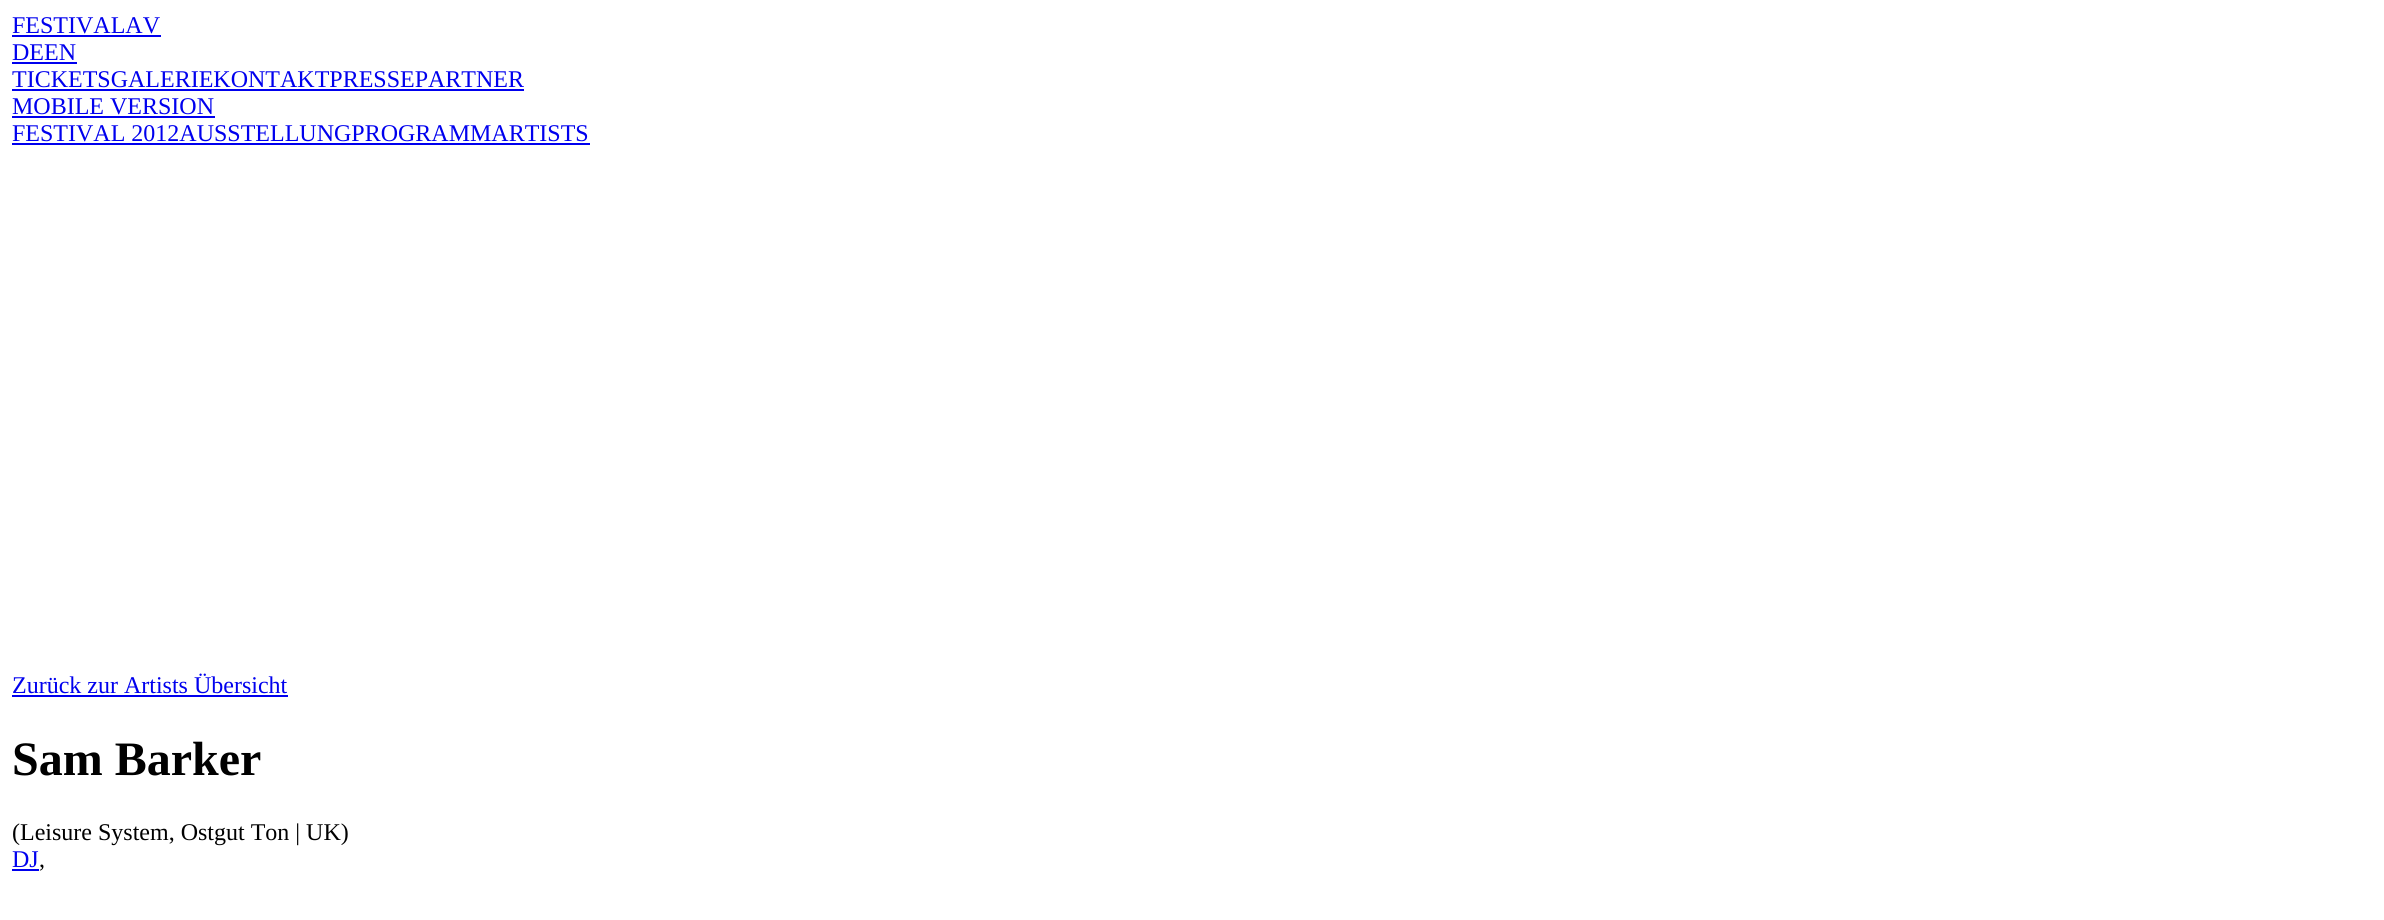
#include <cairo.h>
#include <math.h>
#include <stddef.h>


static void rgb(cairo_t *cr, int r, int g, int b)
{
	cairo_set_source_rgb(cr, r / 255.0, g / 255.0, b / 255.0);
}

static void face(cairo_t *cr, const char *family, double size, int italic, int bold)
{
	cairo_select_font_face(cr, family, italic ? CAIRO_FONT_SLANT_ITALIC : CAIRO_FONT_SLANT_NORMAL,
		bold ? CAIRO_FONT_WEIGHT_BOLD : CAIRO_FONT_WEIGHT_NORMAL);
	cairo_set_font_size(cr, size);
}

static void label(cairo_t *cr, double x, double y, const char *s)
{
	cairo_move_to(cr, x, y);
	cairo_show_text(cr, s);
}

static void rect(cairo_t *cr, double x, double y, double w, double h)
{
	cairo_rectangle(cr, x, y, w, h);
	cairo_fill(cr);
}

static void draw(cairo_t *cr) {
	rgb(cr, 255, 255, 255);
	cairo_paint(cr);
	face(cr, "Liberation Serif", 24, 0, 0);
	rgb(cr, 0, 0, 238);
	label(cr, 12, 33, "FESTIVALAV");
	rect(cr, 12, 35, 149, 2);
	label(cr, 12, 60, "DEEN");
	rect(cr, 12, 62, 65, 2);
	label(cr, 12, 87, "TICKETSGALERIEKONTAKTPRESSEPARTNER");
	rect(cr, 12, 89, 512, 2);
	label(cr, 12, 114, "MOBILE VERSION");
	rect(cr, 12, 116, 203, 2);
	label(cr, 12, 141, "FESTIVAL 2012AUSSTELLUNGPROGRAMMARTISTS");
	rect(cr, 12, 143, 578, 2);
	label(cr, 12, 693, "Zurück zur Artists Übersicht");
	rect(cr, 12, 695, 276, 2);
	face(cr, "Liberation Serif", 48, 0, 1);
	rgb(cr, 0, 0, 0);
	label(cr, 12, 775, "Sam Barker");
	face(cr, "Liberation Serif", 24, 0, 0);
	label(cr, 12, 840, "(Leisure System, Ostgut Ton | UK)");
	rgb(cr, 0, 0, 238);
	label(cr, 12, 867, "DJ");
	rect(cr, 12, 869, 27, 2);
	rgb(cr, 0, 0, 0);
	label(cr, 39, 867, ",");
}

int main(void) {
	cairo_surface_t *surface = cairo_image_surface_create(CAIRO_FORMAT_RGB24, 2384, 920);
	cairo_t *cr = cairo_create(surface);
	cairo_font_options_t *options = cairo_font_options_create();
	cairo_font_options_set_hint_metrics(options, CAIRO_HINT_METRICS_OFF);
	cairo_font_options_set_hint_style(options, CAIRO_HINT_STYLE_NONE);
	cairo_set_font_options(cr, options);
	cairo_set_miter_limit(cr, 4);
	draw(cr);
	cairo_surface_write_to_png(surface, "render.png");
	cairo_font_options_destroy(options);
	cairo_destroy(cr);
	cairo_surface_destroy(surface);
	return 0;
}
